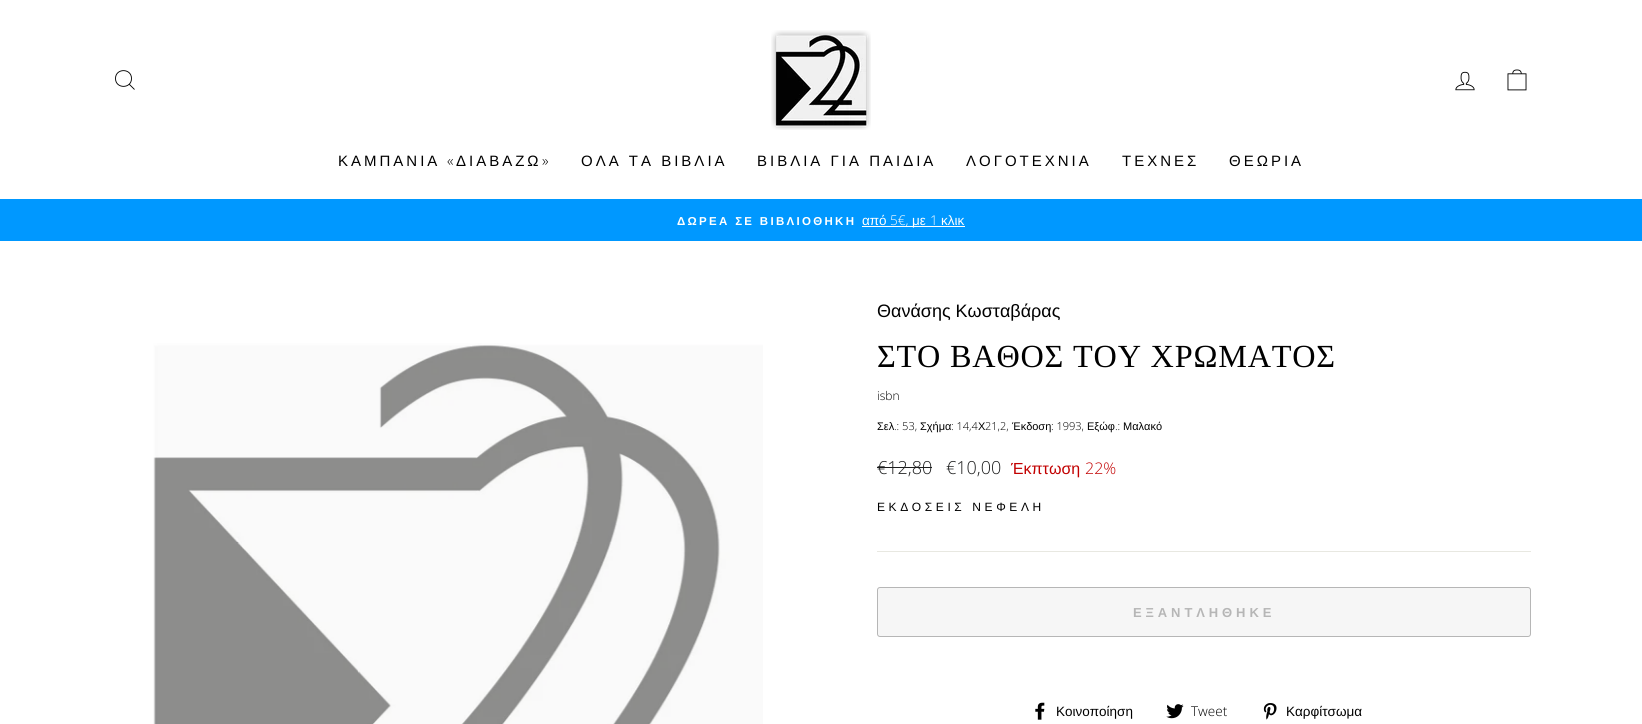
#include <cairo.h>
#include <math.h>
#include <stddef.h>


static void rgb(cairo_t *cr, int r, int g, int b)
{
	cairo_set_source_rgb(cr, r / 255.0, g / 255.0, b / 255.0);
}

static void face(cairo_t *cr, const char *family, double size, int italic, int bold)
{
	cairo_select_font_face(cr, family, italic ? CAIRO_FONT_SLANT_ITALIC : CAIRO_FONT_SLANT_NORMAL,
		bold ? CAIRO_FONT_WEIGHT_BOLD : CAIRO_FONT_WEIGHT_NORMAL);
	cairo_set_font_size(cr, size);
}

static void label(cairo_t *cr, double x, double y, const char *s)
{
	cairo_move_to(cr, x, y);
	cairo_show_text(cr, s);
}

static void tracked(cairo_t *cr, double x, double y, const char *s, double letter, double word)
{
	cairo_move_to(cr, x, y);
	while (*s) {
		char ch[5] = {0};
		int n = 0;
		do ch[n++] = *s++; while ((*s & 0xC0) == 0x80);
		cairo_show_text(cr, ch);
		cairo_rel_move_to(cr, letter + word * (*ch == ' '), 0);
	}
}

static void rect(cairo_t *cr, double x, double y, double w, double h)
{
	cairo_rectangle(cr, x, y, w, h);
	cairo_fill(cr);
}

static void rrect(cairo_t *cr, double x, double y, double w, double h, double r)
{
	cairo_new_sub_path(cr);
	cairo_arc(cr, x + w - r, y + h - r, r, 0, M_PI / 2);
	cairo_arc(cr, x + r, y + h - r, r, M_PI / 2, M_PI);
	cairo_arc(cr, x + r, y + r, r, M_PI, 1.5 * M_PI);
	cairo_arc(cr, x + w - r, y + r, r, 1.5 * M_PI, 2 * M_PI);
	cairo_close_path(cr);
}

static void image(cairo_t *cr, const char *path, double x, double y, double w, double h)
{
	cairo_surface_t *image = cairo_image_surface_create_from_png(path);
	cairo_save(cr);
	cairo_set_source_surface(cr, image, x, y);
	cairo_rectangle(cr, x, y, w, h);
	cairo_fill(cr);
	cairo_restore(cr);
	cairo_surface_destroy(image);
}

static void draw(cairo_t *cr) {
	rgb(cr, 255, 255, 255);
	cairo_paint(cr);
	cairo_new_path(cr);
	cairo_move_to(cr, 131.5, 78.5);
	cairo_curve_to(cr, 131.5, 89, 115.5, 89, 115.5, 78.5);
	cairo_curve_to(cr, 115.5, 68, 131.5, 68, 131.5, 78.5);
	cairo_close_path(cr);
	cairo_move_to(cr, 134.5, 89.5);
	cairo_line_to(cr, 129.5, 84.5);
	rgb(cr, 0, 0, 0);
	cairo_set_line_width(cr, 0.9);
	cairo_stroke(cr);
	image(cr, "image0.png", 771, 30, 100, 100);
	image(cr, "image1.png", 1455, 71, 20, 20);
	image(cr, "image2.png", 1507, 69, 20, 22);
	face(cr, "Liberation Sans", 15, 0, 0);
	tracked(cr, 338, 166, "ΚΑΜΠΑΝΙΑ", 3, 0);
	face(cr, "Open Sans Light", 15, 0, 0);
	tracked(cr, 447, 166, "«", 3, 0);
	face(cr, "Liberation Sans", 15, 0, 0);
	tracked(cr, 456, 166, "ΔΙΑΒΑΖΩ", 3, 0);
	face(cr, "Open Sans Light", 15, 0, 0);
	tracked(cr, 542, 166, "»", 3, 0);
	face(cr, "Liberation Sans", 15, 0, 0);
	tracked(cr, 581, 166, "ΟΛΑ ΤΑ ΒΙΒΛΙΑ", 3, 0);
	tracked(cr, 757, 166, "ΒΙΒΛΙΑ ΓΙΑ ΠΑΙΔΙΑ", 3, 0);
	tracked(cr, 966, 166, "ΛΟΓΟΤΕΧΝΙΑ", 3, 0);
	tracked(cr, 1122, 166, "ΤΕΧΝΕΣ", 3, 0);
	tracked(cr, 1229, 166, "ΘΕΩΡΙΑ", 3, 0);
	rgb(cr, 0, 152, 255);
	rect(cr, 0, 199, 1642, 42);
	face(cr, "Liberation Sans", 11.5, 0, 1);
	rgb(cr, 255, 255, 255);
	tracked(cr, 677, 225, "ΔΩΡΕΑ ΣΕ ΒΙΒΛΙΟΘΗΚΗ", 2.3, 0);
	face(cr, "Liberation Sans", 13.5, 0, 0);
	label(cr, 862, 225, "από");
	rect(cr, 862, 226, 103, 1);
	face(cr, "Open Sans Light", 13.5, 0, 0);
	label(cr, 890, 225, "5€,");
	face(cr, "Liberation Sans", 13.5, 0, 0);
	label(cr, 912, 225, "με");
	face(cr, "Open Sans Light", 13.5, 0, 0);
	label(cr, 930, 225, "1");
	face(cr, "Liberation Sans", 13.5, 0, 0);
	label(cr, 941, 225, "κλικ");
	image(cr, "image3.png", 153, 343, 610, 381);
	face(cr, "Liberation Sans", 18, 0, 0);
	rgb(cr, 0, 0, 0);
	label(cr, 877, 317, "Θανάσης Κωσταβάρας");
	face(cr, "Liberation Serif", 32.25, 0, 0);
	tracked(cr, 877, 367, "ΣΤΟ ΒΑΘΟΣ ΤΟΥ ΧΡΩΜΑΤΟΣ", 0.8, 0);
	face(cr, "Open Sans Light", 12, 0, 0);
	label(cr, 877, 400, "isbn");
	face(cr, "Liberation Sans", 11, 0, 0);
	label(cr, 877, 430, "Σελ");
	face(cr, "Open Sans Light", 11, 0, 0);
	label(cr, 894, 430, ".: 53,");
	face(cr, "Liberation Sans", 11, 0, 0);
	label(cr, 920, 430, "Σχήμα");
	face(cr, "Open Sans Light", 11, 0, 0);
	label(cr, 951, 430, ": 14,4");
	face(cr, "Liberation Sans", 11, 0, 0);
	label(cr, 978, 430, "Χ");
	face(cr, "Open Sans Light", 11, 0, 0);
	label(cr, 985, 430, "21,2,");
	face(cr, "Liberation Sans", 11, 0, 0);
	label(cr, 1012, 430, "Έκδοση");
	face(cr, "Open Sans Light", 11, 0, 0);
	label(cr, 1051, 430, ": 1993,");
	face(cr, "Liberation Sans", 11, 0, 0);
	label(cr, 1087, 430, "Εξώφ");
	face(cr, "Open Sans Light", 11, 0, 0);
	label(cr, 1115, 430, ".:");
	face(cr, "Liberation Sans", 11, 0, 0);
	label(cr, 1123, 430, "Μαλακό");
	face(cr, "Open Sans Light", 18, 0, 0);
	rgb(cr, 28, 29, 29);
	label(cr, 877, 474, "€12,80");
	rect(cr, 877, 467, 55, 1);
	label(cr, 946, 474, "€10,00");
	face(cr, "Liberation Sans", 16, 0, 0);
	rgb(cr, 194, 0, 0);
	label(cr, 1011, 474, "Έκπτωση");
	face(cr, "Open Sans Light", 16, 0, 0);
	label(cr, 1085, 474, "22%");
	face(cr, "Liberation Sans", 12, 0, 0);
	rgb(cr, 0, 0, 0);
	tracked(cr, 877, 511, "ΕΚΔΟΣΕΙΣ ΝΕΦΕΛΗ", 3.6, 0);
	rgb(cr, 232, 232, 225);
	rect(cr, 877, 551, 654, 1);
	rgb(cr, 246, 246, 246);
	rrect(cr, 877.5, 587.5, 653, 49, 2.5);
	cairo_fill_preserve(cr);
	rgb(cr, 182, 182, 182);
	cairo_set_line_width(cr, 1);
	cairo_stroke(cr);
	face(cr, "Liberation Sans", 13, 0, 1);
	tracked(cr, 1133, 617, "ΕΞΑΝΤΛΗΘΗΚΕ", 3.9, 0);
	image(cr, "image4.png", 1035, 702, 10, 18);
	face(cr, "Liberation Sans", 13.5, 0, 0);
	rgb(cr, 0, 0, 0);
	label(cr, 1056, 716, "Κοινοποίηση");
	image(cr, "image5.png", 1166, 704, 18, 15);
	face(cr, "Open Sans Light", 13.5, 0, 0);
	label(cr, 1191, 716, "Tweet");
	image(cr, "image6.png", 1263, 703, 14, 17);
	face(cr, "Liberation Sans", 13.5, 0, 0);
	label(cr, 1286, 716, "Καρφίτσωμα");
}

int main(void) {
	cairo_surface_t *surface = cairo_image_surface_create(CAIRO_FORMAT_RGB24, 1642, 724);
	cairo_t *cr = cairo_create(surface);
	cairo_font_options_t *options = cairo_font_options_create();
	cairo_font_options_set_hint_metrics(options, CAIRO_HINT_METRICS_OFF);
	cairo_font_options_set_hint_style(options, CAIRO_HINT_STYLE_NONE);
	cairo_set_font_options(cr, options);
	cairo_set_miter_limit(cr, 4);
	draw(cr);
	cairo_surface_write_to_png(surface, "render.png");
	cairo_font_options_destroy(options);
	cairo_destroy(cr);
	cairo_surface_destroy(surface);
	return 0;
}
